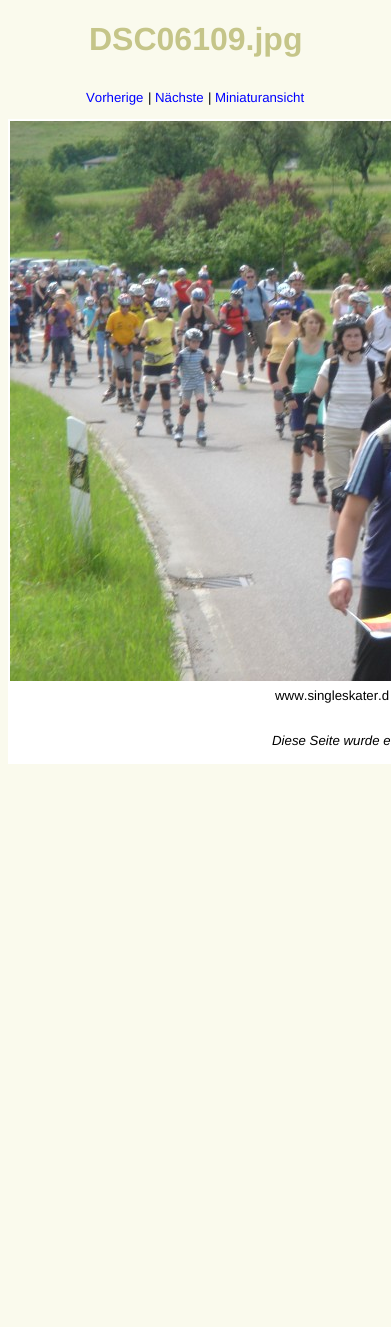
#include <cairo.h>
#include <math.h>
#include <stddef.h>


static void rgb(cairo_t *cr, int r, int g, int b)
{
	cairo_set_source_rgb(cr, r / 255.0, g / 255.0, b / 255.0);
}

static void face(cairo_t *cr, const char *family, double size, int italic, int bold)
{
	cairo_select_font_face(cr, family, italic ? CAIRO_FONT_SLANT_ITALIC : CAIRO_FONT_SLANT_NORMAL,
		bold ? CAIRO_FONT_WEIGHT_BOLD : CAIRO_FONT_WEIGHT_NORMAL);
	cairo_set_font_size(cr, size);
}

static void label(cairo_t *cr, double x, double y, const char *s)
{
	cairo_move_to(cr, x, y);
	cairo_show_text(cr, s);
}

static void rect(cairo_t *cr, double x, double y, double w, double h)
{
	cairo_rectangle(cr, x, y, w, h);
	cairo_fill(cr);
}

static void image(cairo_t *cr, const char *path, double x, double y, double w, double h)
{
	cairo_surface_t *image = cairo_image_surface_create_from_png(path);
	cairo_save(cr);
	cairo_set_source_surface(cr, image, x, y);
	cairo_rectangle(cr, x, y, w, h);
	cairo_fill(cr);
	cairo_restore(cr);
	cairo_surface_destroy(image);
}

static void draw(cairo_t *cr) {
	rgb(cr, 250, 250, 237);
	cairo_paint(cr);
	face(cr, "Liberation Sans", 32, 0, 1);
	rgb(cr, 197, 197, 137);
	label(cr, 89, 50, "DSC06109.jpg");
	face(cr, "Liberation Sans", 13.25, 0, 0);
	rgb(cr, 0, 0, 255);
	label(cr, 86, 102, "Vorherige");
	rgb(cr, 0, 0, 0);
	label(cr, 148, 102, "|");
	rgb(cr, 0, 0, 255);
	label(cr, 155, 102, "Nächste");
	rgb(cr, 0, 0, 0);
	label(cr, 208, 102, "|");
	rgb(cr, 0, 0, 255);
	label(cr, 215, 102, "Miniaturansicht");
	rgb(cr, 255, 255, 255);
	rect(cr, 8, 119, 383, 645);
	image(cr, "image0.png", 10, 121, 381, 560);
	rgb(cr, 0, 0, 0);
	label(cr, 275, 700, "www.singleskater.d");
	face(cr, "Liberation Sans", 13.25, 1, 0);
	label(cr, 272, 745, "Diese Seite wurde e");
}

int main(void) {
	cairo_surface_t *surface = cairo_image_surface_create(CAIRO_FORMAT_RGB24, 391, 1327);
	cairo_t *cr = cairo_create(surface);
	cairo_font_options_t *options = cairo_font_options_create();
	cairo_font_options_set_hint_metrics(options, CAIRO_HINT_METRICS_OFF);
	cairo_font_options_set_hint_style(options, CAIRO_HINT_STYLE_NONE);
	cairo_set_font_options(cr, options);
	cairo_set_miter_limit(cr, 4);
	draw(cr);
	cairo_surface_write_to_png(surface, "render.png");
	cairo_font_options_destroy(options);
	cairo_destroy(cr);
	cairo_surface_destroy(surface);
	return 0;
}
